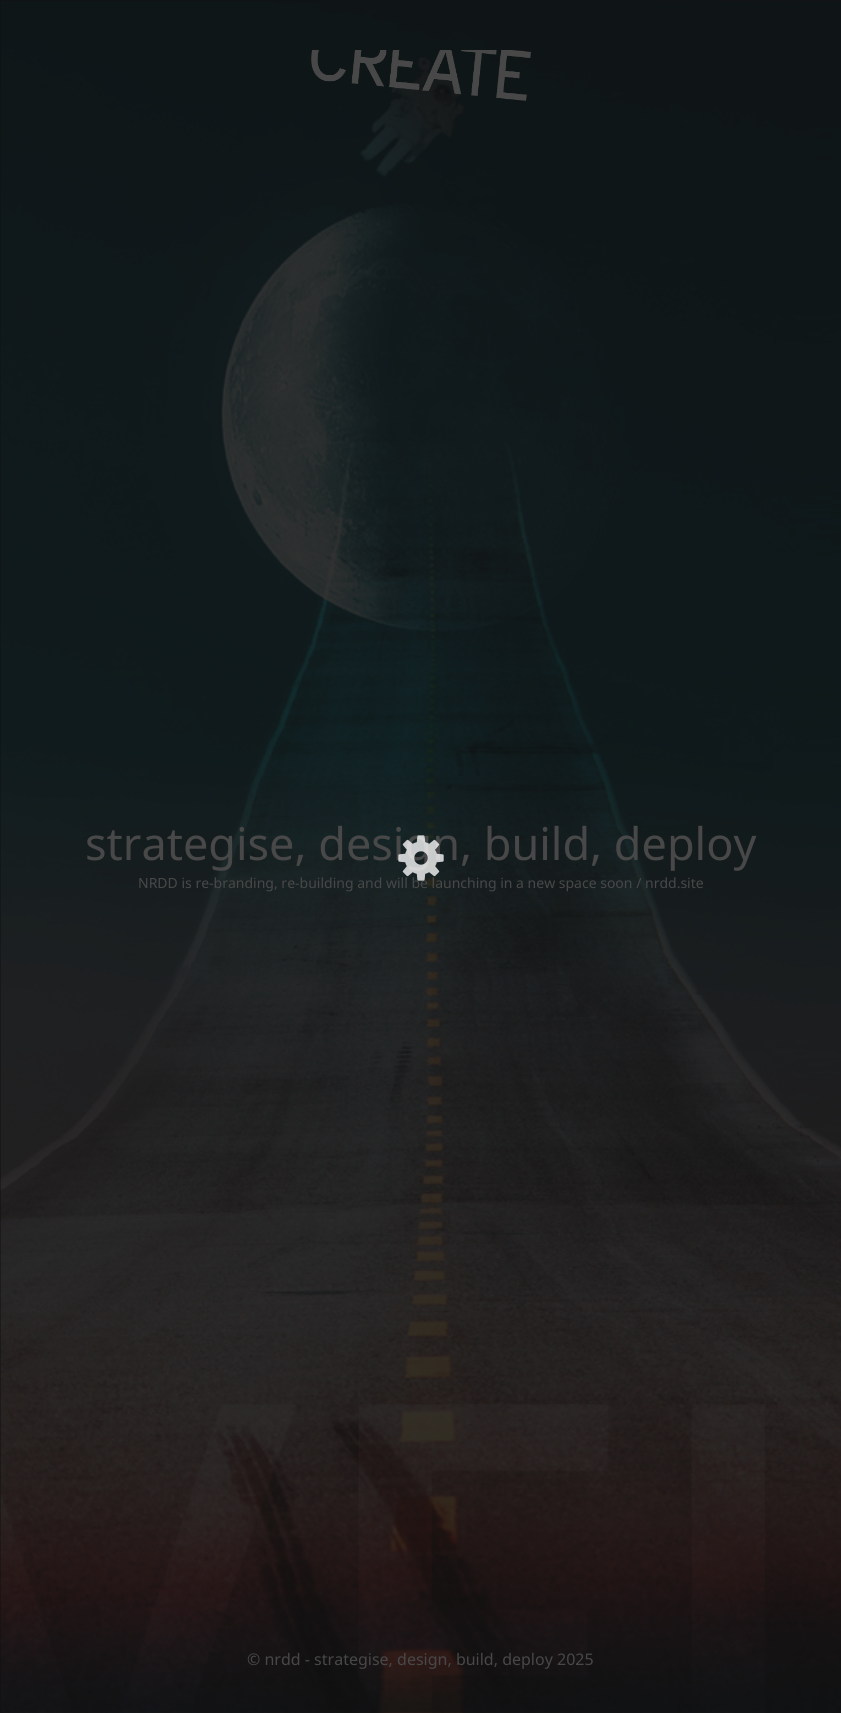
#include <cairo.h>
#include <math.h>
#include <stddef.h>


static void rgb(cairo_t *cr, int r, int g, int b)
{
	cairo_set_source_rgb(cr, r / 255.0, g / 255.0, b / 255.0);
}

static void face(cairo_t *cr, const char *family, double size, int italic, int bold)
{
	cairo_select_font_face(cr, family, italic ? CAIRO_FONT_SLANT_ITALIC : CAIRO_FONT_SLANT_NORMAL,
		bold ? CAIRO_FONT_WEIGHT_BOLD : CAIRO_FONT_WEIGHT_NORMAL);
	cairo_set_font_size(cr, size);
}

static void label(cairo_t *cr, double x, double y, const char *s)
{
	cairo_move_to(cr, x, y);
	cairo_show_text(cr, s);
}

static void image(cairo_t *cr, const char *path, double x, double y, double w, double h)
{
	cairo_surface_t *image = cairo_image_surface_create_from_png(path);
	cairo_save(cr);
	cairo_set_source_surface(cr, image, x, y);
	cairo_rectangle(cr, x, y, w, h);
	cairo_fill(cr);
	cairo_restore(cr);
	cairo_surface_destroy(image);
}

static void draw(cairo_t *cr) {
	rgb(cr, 17, 17, 17);
	cairo_paint(cr);
	image(cr, "image0.png", 0, 0, 841, 1713);
	image(cr, "image1.png", 311, 50, 220, 51);
	face(cr, "Noto Sans", 45, 0, 0);
	rgb(cr, 72, 72, 72);
	label(cr, 85, 860, "strategise, design, build, deploy");
	face(cr, "Noto Sans", 14, 0, 0);
	label(cr, 138, 888, "NRDD is re-branding, re-building and will be launching in a new space soon / nrdd.site");
	image(cr, "image2.png", 398, 835, 46, 46);
	face(cr, "Noto Sans", 16, 0, 0);
	label(cr, 247, 1665, "© nrdd - strategise, design, build, deploy 2025");
}

int main(void) {
	cairo_surface_t *surface = cairo_image_surface_create(CAIRO_FORMAT_RGB24, 841, 1713);
	cairo_t *cr = cairo_create(surface);
	cairo_font_options_t *options = cairo_font_options_create();
	cairo_font_options_set_hint_metrics(options, CAIRO_HINT_METRICS_OFF);
	cairo_font_options_set_hint_style(options, CAIRO_HINT_STYLE_NONE);
	cairo_set_font_options(cr, options);
	cairo_set_miter_limit(cr, 4);
	draw(cr);
	cairo_surface_write_to_png(surface, "render.png");
	cairo_font_options_destroy(options);
	cairo_destroy(cr);
	cairo_surface_destroy(surface);
	return 0;
}
